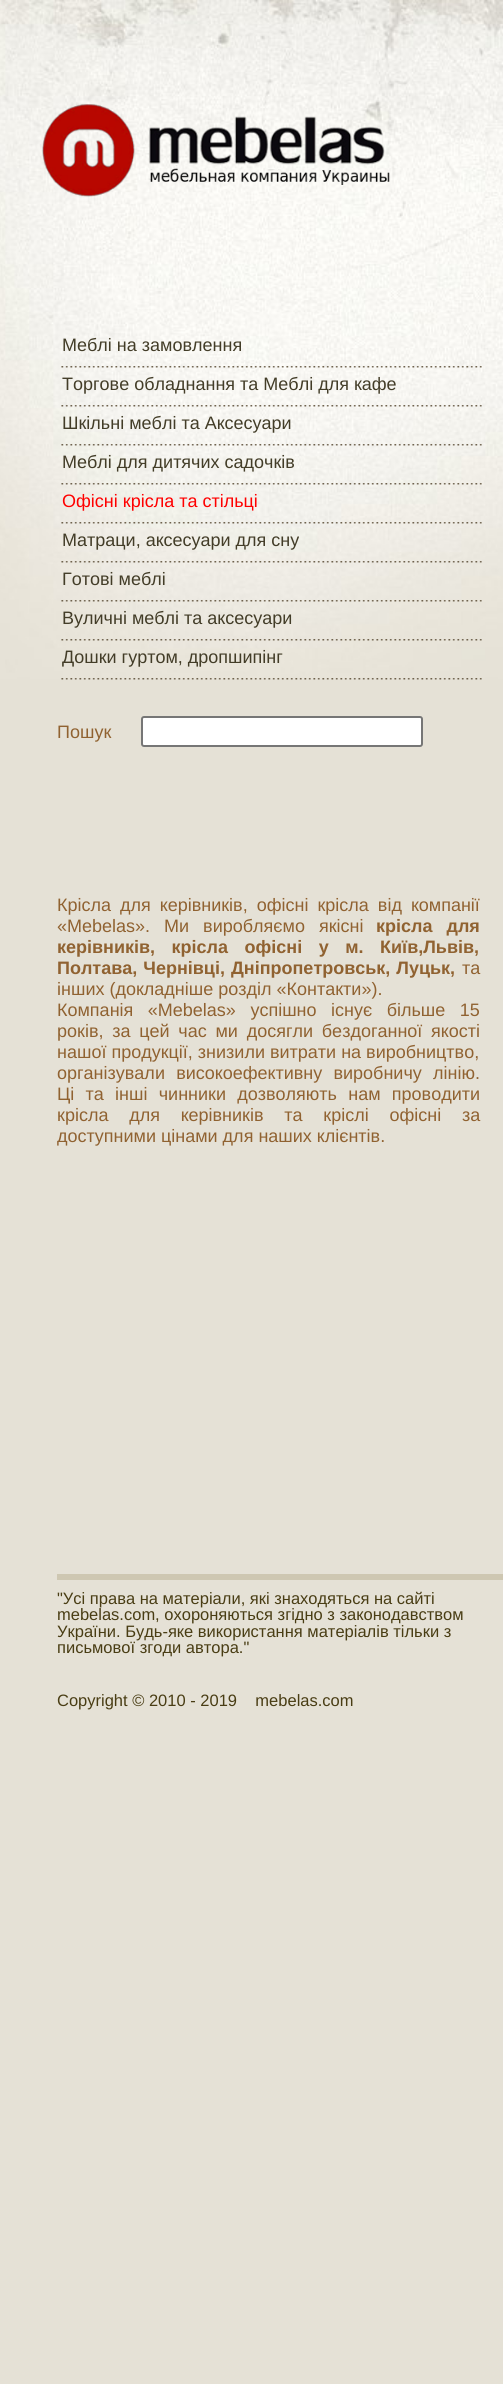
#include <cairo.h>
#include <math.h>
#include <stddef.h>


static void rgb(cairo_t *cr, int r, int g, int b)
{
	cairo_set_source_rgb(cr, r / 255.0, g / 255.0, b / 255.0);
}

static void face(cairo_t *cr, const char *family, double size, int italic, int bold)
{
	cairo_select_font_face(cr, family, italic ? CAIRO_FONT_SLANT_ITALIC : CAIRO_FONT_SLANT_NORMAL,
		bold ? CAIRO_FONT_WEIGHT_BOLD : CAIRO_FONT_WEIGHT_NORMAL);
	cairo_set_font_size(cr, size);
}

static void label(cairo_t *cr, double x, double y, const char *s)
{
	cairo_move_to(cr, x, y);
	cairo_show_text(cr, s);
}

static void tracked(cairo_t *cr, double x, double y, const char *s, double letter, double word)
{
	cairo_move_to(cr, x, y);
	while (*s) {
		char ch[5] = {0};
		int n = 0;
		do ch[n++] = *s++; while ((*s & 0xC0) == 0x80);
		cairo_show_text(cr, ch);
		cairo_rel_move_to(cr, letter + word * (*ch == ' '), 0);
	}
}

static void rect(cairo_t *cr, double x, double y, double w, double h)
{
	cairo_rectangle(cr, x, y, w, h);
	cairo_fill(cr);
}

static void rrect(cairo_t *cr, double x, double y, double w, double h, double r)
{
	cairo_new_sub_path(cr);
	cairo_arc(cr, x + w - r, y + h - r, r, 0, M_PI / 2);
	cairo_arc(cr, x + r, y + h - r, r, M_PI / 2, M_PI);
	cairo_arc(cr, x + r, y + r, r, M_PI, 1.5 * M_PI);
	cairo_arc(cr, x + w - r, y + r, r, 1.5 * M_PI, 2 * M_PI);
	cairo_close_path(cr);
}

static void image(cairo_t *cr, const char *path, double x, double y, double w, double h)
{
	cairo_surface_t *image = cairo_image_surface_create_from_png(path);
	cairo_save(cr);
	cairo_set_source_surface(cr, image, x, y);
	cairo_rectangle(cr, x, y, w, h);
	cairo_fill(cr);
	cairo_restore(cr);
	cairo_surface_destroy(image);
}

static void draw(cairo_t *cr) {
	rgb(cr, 229, 225, 214);
	cairo_paint(cr);
	image(cr, "image0.png", 0, 0, 503, 679);
	image(cr, "image1.png", 42, 104, 348, 93);
	image(cr, "image2.png", 61, 366, 421, 2);
	face(cr, "Liberation Sans", 18, 0, 0);
	rgb(cr, 67, 61, 40);
	label(cr, 62, 351, "Меблі на замовлення");
	image(cr, "image3.png", 61, 405, 421, 2);
	label(cr, 62, 390, "Торгове обладнання та Меблі для кафе");
	image(cr, "image4.png", 61, 444, 421, 2);
	label(cr, 62, 429, "Шкільні меблі та Аксесуари");
	image(cr, "image5.png", 61, 483, 421, 2);
	label(cr, 62, 468, "Меблі для дитячих садочків");
	image(cr, "image6.png", 61, 522, 421, 2);
	rgb(cr, 255, 0, 0);
	label(cr, 62, 507, "Офісні крісла та стільці");
	image(cr, "image7.png", 61, 561, 421, 2);
	rgb(cr, 67, 61, 40);
	label(cr, 62, 546, "Матраци, аксесуари для сну");
	image(cr, "image8.png", 61, 600, 421, 2);
	label(cr, 62, 585, "Готові меблі");
	image(cr, "image9.png", 61, 639, 421, 2);
	label(cr, 62, 624, "Вуличні меблі та аксесуари");
	image(cr, "image10.png", 61, 678, 421, 2);
	label(cr, 62, 663, "Дошки гуртом, дропшипінг");
	rgb(cr, 144, 98, 49);
	label(cr, 57, 738, "Пошук");
	rgb(cr, 255, 255, 255);
	rrect(cr, 142, 717, 280, 29, 2);
	cairo_fill_preserve(cr);
	rgb(cr, 118, 118, 118);
	cairo_stroke(cr);
	rgb(cr, 144, 98, 49);
	tracked(cr, 57, 911, "Крісла для керівників, офісні крісла від компанії", 0, 4);
	tracked(cr, 57, 932, "«Mebelas». Ми виробляємо якісні", 0, 9);
	face(cr, "Liberation Sans", 18, 0, 1);
	tracked(cr, 376, 932, "крісла для", 0, 9);
	tracked(cr, 57, 953, "керівників, крісла офісні у м. Київ,Львів,", 0, 11.5);
	tracked(cr, 57, 974, "Полтава, Чернівці, Дніпропетровськ, Луцьк,", 0, 1);
	face(cr, "Liberation Sans", 18, 0, 0);
	label(cr, 462, 974, "та");
	label(cr, 57, 995, "інших (докладніше розділ «Контакти»).");
	tracked(cr, 57, 1016, "Компанія «Mebelas» успішно існує більше 15", 0, 9.5);
	tracked(cr, 57, 1037, "років, за цей час ми досягли бездоганної якості", 0, 3.75);
	label(cr, 57, 1058, "нашої продукції, знизили витрати на виробництво,");
	tracked(cr, 57, 1079, "організували високоефективну виробничу лінію.", 0, 6.25);
	tracked(cr, 57, 1100, "Ці та інші чинники дозволяють нам проводити", 0, 6.25);
	tracked(cr, 57, 1121, "крісла для керівників та кріслі офісні за", 0, 15.75);
	label(cr, 57, 1142, "доступними цінами для наших клієнтів.");
	rgb(cr, 206, 199, 178);
	rect(cr, 57, 1574, 446, 6);
	face(cr, "Liberation Sans", 16.5, 0, 0);
	rgb(cr, 73, 61, 20);
	label(cr, 57, 1604, "\"Усі права на матеріали, які знаходяться на сайті");
	label(cr, 57, 1620, "mebelas.com, охороняються згідно з законодавством");
	label(cr, 57, 1637, "України. Будь-яке використання матеріалів тільки з");
	label(cr, 57, 1653, "письмової згоди автора.\"");
	label(cr, 57, 1706, "Copyright © 2010 - 2019    mebelas.com");
}

int main(void) {
	cairo_surface_t *surface = cairo_image_surface_create(CAIRO_FORMAT_RGB24, 503, 2384);
	cairo_t *cr = cairo_create(surface);
	cairo_font_options_t *options = cairo_font_options_create();
	cairo_font_options_set_hint_metrics(options, CAIRO_HINT_METRICS_OFF);
	cairo_font_options_set_hint_style(options, CAIRO_HINT_STYLE_NONE);
	cairo_set_font_options(cr, options);
	cairo_set_miter_limit(cr, 4);
	draw(cr);
	cairo_surface_write_to_png(surface, "render.png");
	cairo_font_options_destroy(options);
	cairo_destroy(cr);
	cairo_surface_destroy(surface);
	return 0;
}
